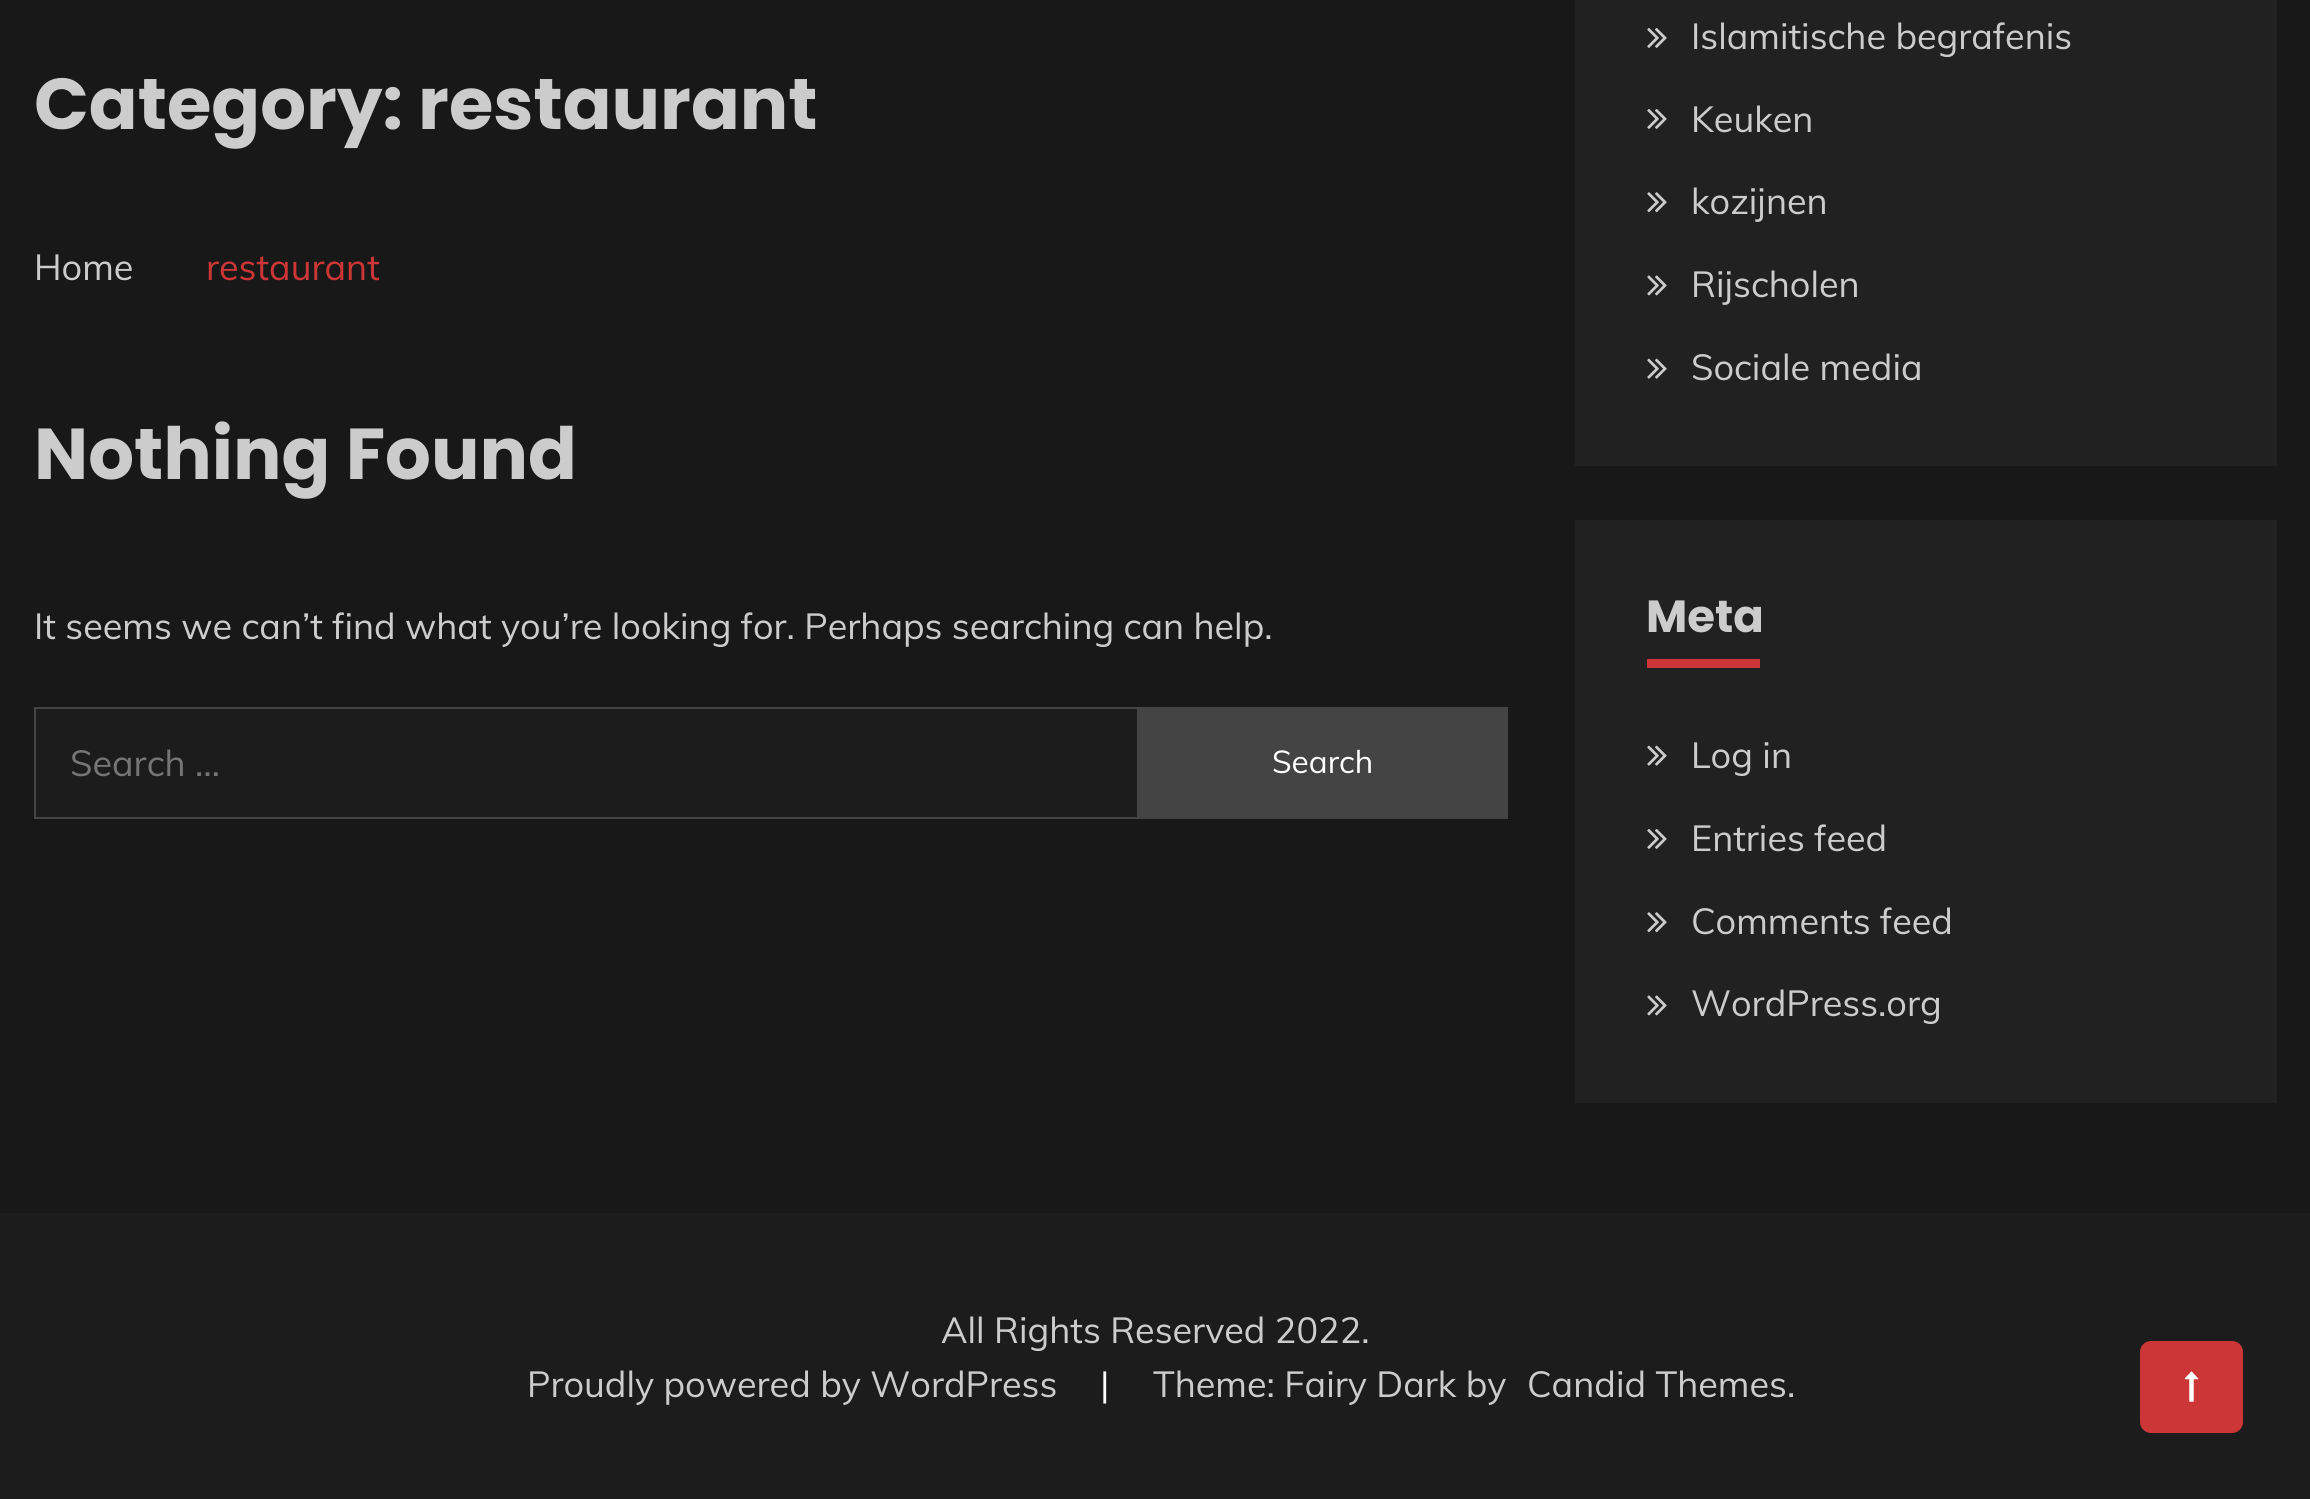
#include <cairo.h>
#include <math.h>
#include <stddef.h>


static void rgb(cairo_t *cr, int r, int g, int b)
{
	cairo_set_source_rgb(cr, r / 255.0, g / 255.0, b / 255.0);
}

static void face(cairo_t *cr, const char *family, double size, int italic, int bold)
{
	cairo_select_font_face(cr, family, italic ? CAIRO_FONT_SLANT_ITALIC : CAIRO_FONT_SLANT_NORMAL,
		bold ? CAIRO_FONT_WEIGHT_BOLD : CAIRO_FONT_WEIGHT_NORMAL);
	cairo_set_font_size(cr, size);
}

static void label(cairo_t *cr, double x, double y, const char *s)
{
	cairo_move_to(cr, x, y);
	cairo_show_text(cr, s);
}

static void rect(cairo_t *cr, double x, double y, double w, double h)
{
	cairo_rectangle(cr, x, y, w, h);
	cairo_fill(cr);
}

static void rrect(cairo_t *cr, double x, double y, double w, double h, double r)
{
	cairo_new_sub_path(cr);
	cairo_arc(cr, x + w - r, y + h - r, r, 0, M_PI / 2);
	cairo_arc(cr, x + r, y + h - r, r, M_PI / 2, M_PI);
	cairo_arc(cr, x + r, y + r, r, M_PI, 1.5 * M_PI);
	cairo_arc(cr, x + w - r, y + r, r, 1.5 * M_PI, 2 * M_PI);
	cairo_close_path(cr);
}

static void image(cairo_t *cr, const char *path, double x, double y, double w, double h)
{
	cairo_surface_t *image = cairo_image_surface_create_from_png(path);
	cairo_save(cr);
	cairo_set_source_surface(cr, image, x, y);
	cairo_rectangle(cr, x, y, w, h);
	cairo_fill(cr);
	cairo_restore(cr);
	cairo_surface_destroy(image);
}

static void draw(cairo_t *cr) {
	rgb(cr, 24, 24, 24);
	cairo_paint(cr);
	face(cr, "Poppins", 72, 0, 1);
	rgb(cr, 204, 204, 204);
	label(cr, 34, 129, "Category: restaurant");
	face(cr, "Muli", 36, 0, 0);
	label(cr, 34, 280, "Home");
	rgb(cr, 205, 54, 54);
	label(cr, 206, 280, "restaurant");
	face(cr, "Poppins", 72, 0, 1);
	rgb(cr, 204, 204, 204);
	label(cr, 34, 479, "Nothing Found");
	face(cr, "Muli", 36, 0, 0);
	label(cr, 34, 639, "It seems we can’t find what you’re looking for. Perhaps searching can help.");
	rgb(cr, 28, 28, 28);
	cairo_rectangle(cr, 35, 708, 1103, 110);
	cairo_fill_preserve(cr);
	rgb(cr, 68, 68, 68);
	cairo_stroke(cr);
	rgb(cr, 117, 117, 117);
	label(cr, 70, 776, "Search …");
	rgb(cr, 68, 68, 68);
	rect(cr, 1139, 707, 369, 112);
	face(cr, "Muli", 31.5, 0, 0);
	rgb(cr, 255, 255, 255);
	label(cr, 1272, 773, "Search");
	rgb(cr, 33, 33, 33);
	rect(cr, 1575, 0, 702, 466);
	image(cr, "image0.png", 1647, 28, 20, 20);
	face(cr, "Muli", 36, 0, 0);
	rgb(cr, 204, 204, 204);
	label(cr, 1691, 49, "Islamitische begrafenis");
	image(cr, "image0.png", 1647, 109, 20, 20);
	label(cr, 1691, 132, "Keuken");
	image(cr, "image1.png", 1647, 192, 20, 21);
	label(cr, 1691, 214, "kozijnen");
	image(cr, "image2.png", 1647, 275, 20, 21);
	label(cr, 1691, 297, "Rijscholen");
	image(cr, "image3.png", 1647, 358, 20, 21);
	label(cr, 1691, 380, "Sociale media");
	rgb(cr, 33, 33, 33);
	rect(cr, 1575, 520, 702, 583);
	face(cr, "Poppins", 45, 0, 1);
	rgb(cr, 204, 204, 204);
	label(cr, 1646, 632, "Meta");
	rgb(cr, 205, 54, 54);
	rect(cr, 1647, 659, 113, 9);
	image(cr, "image3.png", 1647, 745, 20, 21);
	face(cr, "Muli", 36, 0, 0);
	rgb(cr, 204, 204, 204);
	label(cr, 1691, 768, "Log in");
	image(cr, "image0.png", 1647, 829, 20, 20);
	label(cr, 1691, 851, "Entries feed");
	image(cr, "image1.png", 1647, 912, 20, 21);
	label(cr, 1691, 934, "Comments feed");
	image(cr, "image2.png", 1647, 995, 20, 21);
	label(cr, 1691, 1016, "WordPress.org");
	rgb(cr, 28, 28, 28);
	rect(cr, 0, 1213, 2310, 286);
	rgb(cr, 204, 204, 204);
	label(cr, 941, 1343, "All Rights Reserved 2022.");
	label(cr, 527, 1397, "Proudly powered by WordPress");
	rgb(cr, 255, 255, 255);
	label(cr, 1100, 1397, "|");
	rgb(cr, 204, 204, 204);
	label(cr, 1153, 1397, "Theme: Fairy Dark by");
	label(cr, 1527, 1397, "Candid Themes.");
	rgb(cr, 205, 54, 54);
	rrect(cr, 2140, 1341, 103, 92, 11);
	cairo_fill(cr);
	image(cr, "image4.png", 2184, 1371, 15, 31);
}

int main(void) {
	cairo_surface_t *surface = cairo_image_surface_create(CAIRO_FORMAT_RGB24, 2310, 1499);
	cairo_t *cr = cairo_create(surface);
	cairo_font_options_t *options = cairo_font_options_create();
	cairo_font_options_set_hint_metrics(options, CAIRO_HINT_METRICS_OFF);
	cairo_font_options_set_hint_style(options, CAIRO_HINT_STYLE_NONE);
	cairo_set_font_options(cr, options);
	cairo_set_miter_limit(cr, 4);
	draw(cr);
	cairo_surface_write_to_png(surface, "render.png");
	cairo_font_options_destroy(options);
	cairo_destroy(cr);
	cairo_surface_destroy(surface);
	return 0;
}
